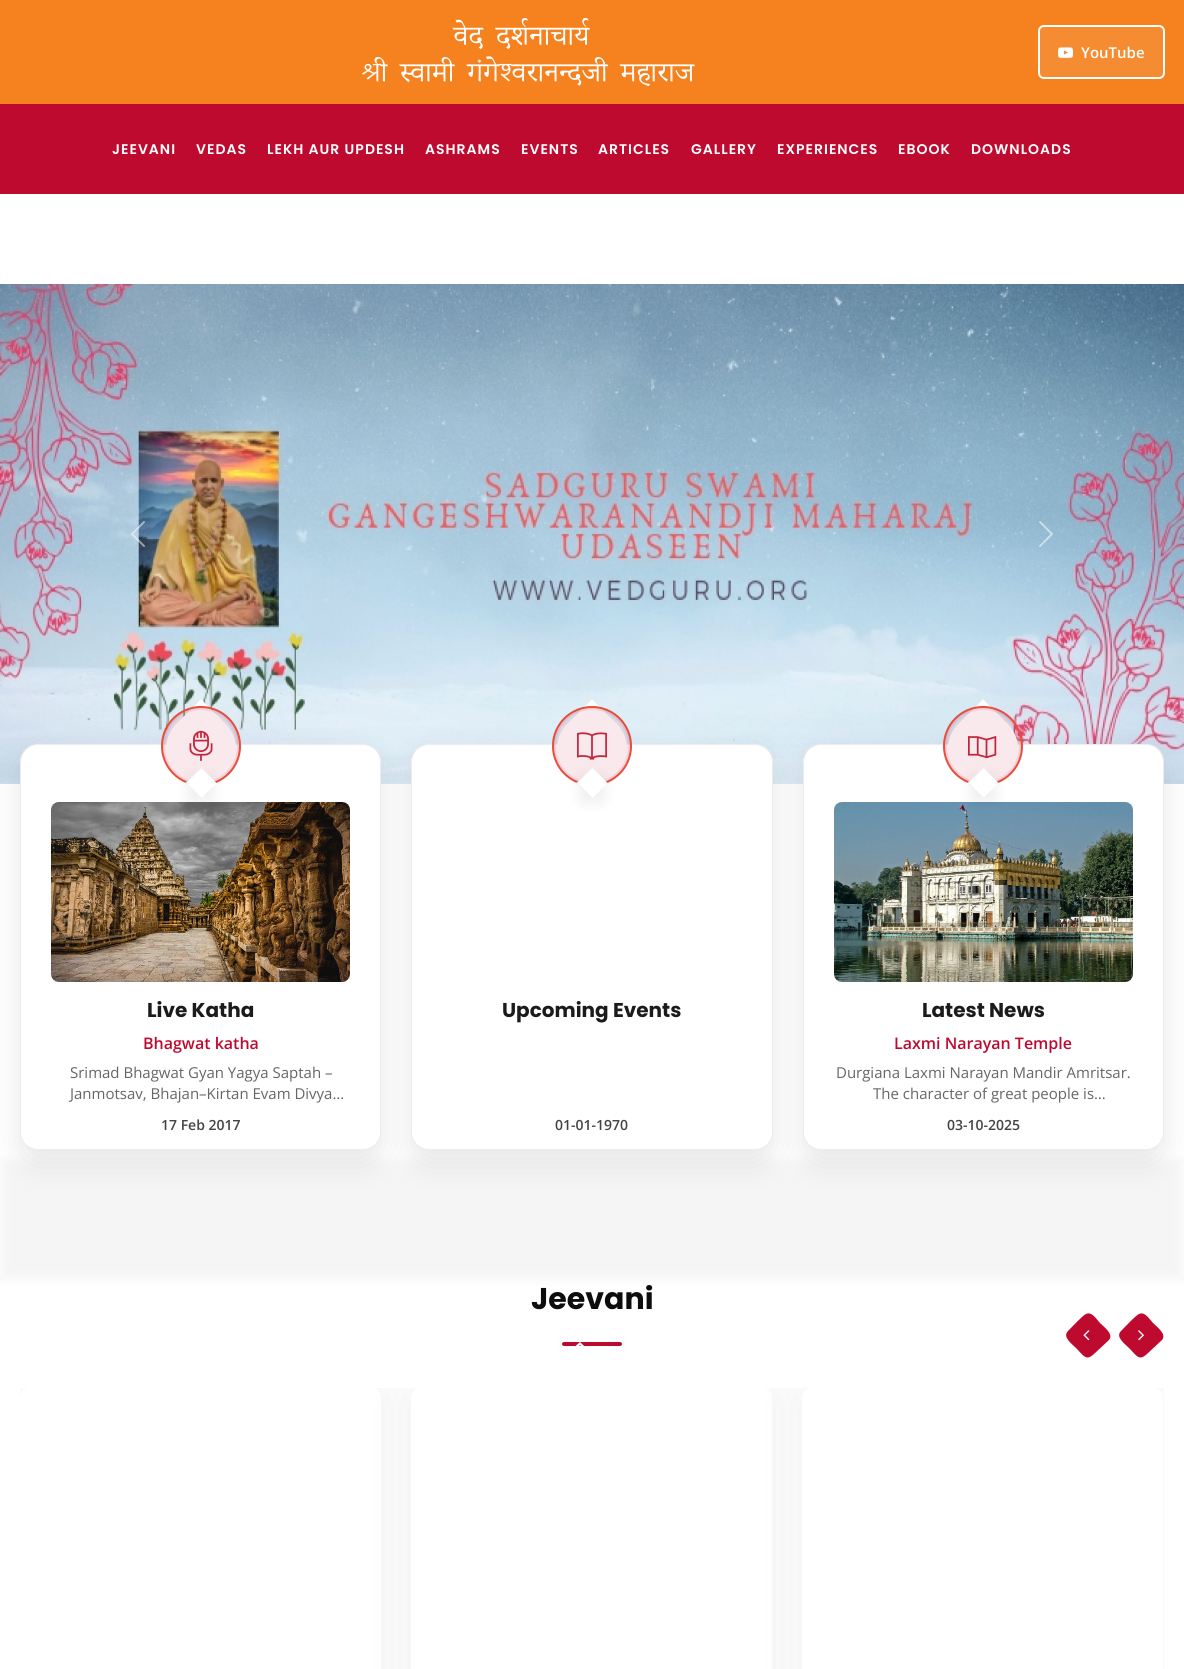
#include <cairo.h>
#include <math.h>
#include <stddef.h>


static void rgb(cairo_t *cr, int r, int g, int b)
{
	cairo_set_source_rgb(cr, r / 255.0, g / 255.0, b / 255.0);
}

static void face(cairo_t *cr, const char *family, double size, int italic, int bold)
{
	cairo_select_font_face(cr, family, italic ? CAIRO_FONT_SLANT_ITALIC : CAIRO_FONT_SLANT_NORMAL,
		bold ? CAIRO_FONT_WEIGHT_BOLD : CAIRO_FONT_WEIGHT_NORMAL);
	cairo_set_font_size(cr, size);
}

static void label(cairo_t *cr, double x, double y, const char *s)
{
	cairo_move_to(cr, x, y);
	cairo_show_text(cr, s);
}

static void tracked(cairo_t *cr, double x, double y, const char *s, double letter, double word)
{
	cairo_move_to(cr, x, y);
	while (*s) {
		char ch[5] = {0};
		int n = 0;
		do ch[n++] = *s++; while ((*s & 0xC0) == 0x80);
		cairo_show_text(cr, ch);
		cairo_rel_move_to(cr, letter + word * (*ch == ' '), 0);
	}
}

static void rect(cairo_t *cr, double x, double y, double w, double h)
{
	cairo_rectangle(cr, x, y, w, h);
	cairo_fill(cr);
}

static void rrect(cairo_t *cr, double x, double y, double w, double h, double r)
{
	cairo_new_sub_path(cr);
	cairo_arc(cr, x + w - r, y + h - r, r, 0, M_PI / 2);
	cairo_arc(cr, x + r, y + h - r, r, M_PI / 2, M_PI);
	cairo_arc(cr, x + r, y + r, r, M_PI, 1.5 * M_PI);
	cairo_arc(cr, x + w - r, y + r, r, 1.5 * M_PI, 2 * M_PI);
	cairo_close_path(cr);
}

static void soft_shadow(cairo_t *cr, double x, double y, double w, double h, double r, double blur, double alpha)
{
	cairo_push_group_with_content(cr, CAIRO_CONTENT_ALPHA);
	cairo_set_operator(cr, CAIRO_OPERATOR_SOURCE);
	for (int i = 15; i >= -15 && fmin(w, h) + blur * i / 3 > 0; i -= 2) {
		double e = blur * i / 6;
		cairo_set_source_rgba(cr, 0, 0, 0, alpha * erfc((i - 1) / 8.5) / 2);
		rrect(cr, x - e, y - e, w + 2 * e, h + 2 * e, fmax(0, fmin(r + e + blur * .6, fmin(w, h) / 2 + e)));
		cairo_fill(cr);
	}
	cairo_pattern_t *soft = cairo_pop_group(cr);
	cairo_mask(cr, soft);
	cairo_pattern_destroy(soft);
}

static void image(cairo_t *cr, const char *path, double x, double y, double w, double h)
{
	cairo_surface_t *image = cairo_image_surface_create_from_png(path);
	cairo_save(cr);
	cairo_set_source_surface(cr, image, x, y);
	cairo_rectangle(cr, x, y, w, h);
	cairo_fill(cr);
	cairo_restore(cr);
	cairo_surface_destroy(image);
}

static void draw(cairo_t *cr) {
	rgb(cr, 255, 255, 255);
	cairo_paint(cr);
	rgb(cr, 245, 130, 31);
	rect(cr, 0, 0, 1184, 104);
	image(cr, "image0.png", 362, 18, 333, 68);
	rgb(cr, 246, 140, 49);
	rrect(cr, 1039, 26, 125, 52, 5);
	cairo_fill_preserve(cr);
	rgb(cr, 255, 255, 255);
	cairo_stroke(cr);
	image(cr, "image1.png", 1058, 47, 15, 11);
	face(cr, "Open Sans SemiBold", 15, 0, 0);
	label(cr, 1081, 58, "YouTube");
	rgb(cr, 191, 10, 48);
	rect(cr, 0, 104, 1184, 90);
	face(cr, "Poppins SemiBold", 14, 0, 0);
	rgb(cr, 255, 255, 255);
	tracked(cr, 112, 154, "JEEVANI", 1, 0);
	tracked(cr, 196, 154, "VEDAS", 1, 0);
	tracked(cr, 267, 154, "LEKH AUR UPDESH", 1, 0);
	tracked(cr, 425, 154, "ASHRAMS", 1, 0);
	tracked(cr, 521, 154, "EVENTS", 1, 0);
	tracked(cr, 598, 154, "ARTICLES", 1, 0);
	tracked(cr, 691, 154, "GALLERY", 1, 0);
	tracked(cr, 777, 154, "EXPERIENCES", 1, 0);
	tracked(cr, 898, 154, "EBOOK", 1, 0);
	tracked(cr, 971, 154, "DOWNLOADS", 1, 0);
	image(cr, "image2.png", 0, 284, 1184, 500);
	image(cr, "image3.png", 131, 521, 14, 26);
	image(cr, "image4.png", 1039, 521, 14, 26);
	rgb(cr, 0, 0, 0);
	soft_shadow(cr, 20, 756, 361, 406, 18, 15, 0.1);
	soft_shadow(cr, 0, 1160, 1184, 120, 0, 6, 0.04);
	rgb(cr, 255, 255, 255);
	rrect(cr, 20.5, 744.5, 360, 405, 17.5);
	cairo_fill_preserve(cr);
	rgb(cr, 236, 236, 236);
	cairo_set_line_width(cr, 1);
	cairo_stroke(cr);
	rgb(cr, 255, 255, 255);
	cairo_new_path(cr);
	cairo_move_to(cr, 201, 700);
	cairo_line_to(cr, 226, 724);
	cairo_curve_to(cr, 239, 738, 239, 760, 226, 774);
	cairo_curve_to(cr, 212, 787, 190, 787, 176, 774);
	cairo_curve_to(cr, 163, 760, 163, 738, 176, 724);
	cairo_close_path(cr);
	cairo_fill(cr);
	cairo_new_path(cr);
	cairo_move_to(cr, 201, 703.5);
	cairo_line_to(cr, 223.5, 726.5);
	cairo_curve_to(cr, 236, 739, 236, 759, 223.5, 771.5);
	cairo_curve_to(cr, 211, 784, 191, 784, 178.5, 771.5);
	cairo_curve_to(cr, 166, 759, 166, 739, 178.5, 726.5);
	cairo_close_path(cr);
	cairo_set_line_width(cr, 6);
	cairo_stroke(cr);
	cairo_set_source_rgba(cr, 0.765, 0.149, 0.235, 0.1);
	cairo_arc(cr, 201, 746, 40, 0, 2 * M_PI);
	cairo_fill(cr);
	cairo_arc(cr, 201, 746, 37, 0, 2 * M_PI);
	cairo_set_source_rgba(cr, 0.765, 0.149, 0.235, 0.12);
	cairo_set_line_width(cr, 2);
	cairo_stroke(cr);
	cairo_arc(cr, 201, 746, 39, 0, 2 * M_PI);
	rgb(cr, 231, 76, 60);
	cairo_stroke(cr);
	image(cr, "image5.png", 189, 730, 24, 31);
	image(cr, "image6.png", 51, 802, 299, 180);
	rgb(cr, 0, 0, 0);
	soft_shadow(cr, 190, 778, 22, 22, 0, 8, 0.08);
	rgb(cr, 255, 255, 255);
	cairo_new_path(cr);
	cairo_move_to(cr, 201, 767.5);
	cairo_line_to(cr, 216.5, 783);
	cairo_line_to(cr, 201, 798.5);
	cairo_line_to(cr, 185.5, 783);
	cairo_close_path(cr);
	cairo_fill(cr);
	rgb(cr, 236, 236, 236);
	cairo_new_path(cr);
	cairo_move_to(cr, 186, 782.5);
	cairo_line_to(cr, 201.5, 798);
	cairo_line_to(cr, 201, 798.5);
	cairo_line_to(cr, 185.5, 783);
	cairo_close_path(cr);
	cairo_fill(cr);
	cairo_new_path(cr);
	cairo_move_to(cr, 201, 767.5);
	cairo_line_to(cr, 201.5, 768);
	cairo_line_to(cr, 186, 783.5);
	cairo_line_to(cr, 185.5, 783);
	cairo_close_path(cr);
	cairo_fill(cr);
	face(cr, "Poppins", 20, 0, 1);
	rgb(cr, 27, 27, 27);
	label(cr, 147, 1017, "Live Katha");
	face(cr, "Open Sans SemiBold", 16, 0, 0);
	rgb(cr, 191, 10, 48);
	label(cr, 143, 1049, "Bhagwat katha");
	face(cr, "Open Sans", 15, 0, 0);
	rgb(cr, 102, 102, 102);
	label(cr, 70, 1078, "Srimad Bhagwat Gyan Yagya Saptah –");
	label(cr, 70, 1099, "Janmotsav, Bhajan–Kirtan Evam Divya…");
	face(cr, "Open Sans SemiBold", 14, 0, 0);
	rgb(cr, 68, 68, 68);
	label(cr, 161, 1130, "17 Feb 2017");
	rgb(cr, 0, 0, 0);
	soft_shadow(cr, 411, 756, 362, 406, 18, 15, 0.1);
	rgb(cr, 255, 255, 255);
	rrect(cr, 411.5, 744.5, 361, 405, 17.5);
	cairo_fill_preserve(cr);
	rgb(cr, 236, 236, 236);
	cairo_set_line_width(cr, 1);
	cairo_stroke(cr);
	rgb(cr, 255, 255, 255);
	cairo_new_path(cr);
	cairo_move_to(cr, 592, 700);
	cairo_line_to(cr, 617, 724);
	cairo_curve_to(cr, 630, 738, 630, 760, 617, 774);
	cairo_curve_to(cr, 603, 787, 581, 787, 567, 774);
	cairo_curve_to(cr, 554, 760, 554, 738, 567, 724);
	cairo_close_path(cr);
	cairo_fill(cr);
	cairo_new_path(cr);
	cairo_move_to(cr, 592, 703.5);
	cairo_line_to(cr, 614.5, 726.5);
	cairo_curve_to(cr, 627, 739, 627, 759, 614.5, 771.5);
	cairo_curve_to(cr, 602, 784, 582, 784, 569.5, 771.5);
	cairo_curve_to(cr, 557, 759, 557, 739, 569.5, 726.5);
	cairo_close_path(cr);
	cairo_set_line_width(cr, 6);
	cairo_stroke(cr);
	cairo_set_source_rgba(cr, 0.765, 0.149, 0.235, 0.1);
	cairo_arc(cr, 592, 746, 40, 0, 2 * M_PI);
	cairo_fill(cr);
	cairo_arc(cr, 592, 746, 37, 0, 2 * M_PI);
	cairo_set_source_rgba(cr, 0.765, 0.149, 0.235, 0.12);
	cairo_set_line_width(cr, 2);
	cairo_stroke(cr);
	cairo_arc(cr, 592, 746, 39, 0, 2 * M_PI);
	rgb(cr, 231, 76, 60);
	cairo_stroke(cr);
	image(cr, "image7.png", 577, 732, 30, 28);
	rgb(cr, 0, 0, 0);
	soft_shadow(cr, 581, 778, 22, 22, 0, 8, 0.08);
	rgb(cr, 255, 255, 255);
	cairo_new_path(cr);
	cairo_move_to(cr, 592, 767.5);
	cairo_line_to(cr, 607.5, 783);
	cairo_line_to(cr, 592, 798.5);
	cairo_line_to(cr, 576.5, 783);
	cairo_close_path(cr);
	cairo_fill(cr);
	rgb(cr, 236, 236, 236);
	cairo_new_path(cr);
	cairo_move_to(cr, 577, 782.5);
	cairo_line_to(cr, 592.5, 798);
	cairo_line_to(cr, 592, 798.5);
	cairo_line_to(cr, 576.5, 783);
	cairo_close_path(cr);
	cairo_fill(cr);
	cairo_new_path(cr);
	cairo_move_to(cr, 592, 767.5);
	cairo_line_to(cr, 592.5, 768);
	cairo_line_to(cr, 577, 783.5);
	cairo_line_to(cr, 576.5, 783);
	cairo_close_path(cr);
	cairo_fill(cr);
	face(cr, "Poppins", 20, 0, 1);
	rgb(cr, 27, 27, 27);
	label(cr, 502, 1017, "Upcoming Events");
	face(cr, "Open Sans SemiBold", 14, 0, 0);
	rgb(cr, 68, 68, 68);
	label(cr, 555, 1130, "01-01-1970");
	rgb(cr, 0, 0, 0);
	soft_shadow(cr, 803, 756, 361, 406, 18, 15, 0.1);
	rgb(cr, 255, 255, 255);
	rrect(cr, 803.5, 744.5, 360, 405, 17.5);
	cairo_fill_preserve(cr);
	rgb(cr, 236, 236, 236);
	cairo_set_line_width(cr, 1);
	cairo_stroke(cr);
	rgb(cr, 255, 255, 255);
	cairo_new_path(cr);
	cairo_move_to(cr, 983, 700);
	cairo_line_to(cr, 1008, 724);
	cairo_curve_to(cr, 1021, 738, 1021, 760, 1008, 774);
	cairo_curve_to(cr, 994, 787, 972, 787, 958, 774);
	cairo_curve_to(cr, 945, 760, 945, 738, 958, 724);
	cairo_close_path(cr);
	cairo_fill(cr);
	cairo_new_path(cr);
	cairo_move_to(cr, 983, 703.5);
	cairo_line_to(cr, 1005.5, 726.5);
	cairo_curve_to(cr, 1018, 739, 1018, 759, 1005.5, 771.5);
	cairo_curve_to(cr, 993, 784, 973, 784, 960.5, 771.5);
	cairo_curve_to(cr, 948, 759, 948, 739, 960.5, 726.5);
	cairo_close_path(cr);
	cairo_set_line_width(cr, 6);
	cairo_stroke(cr);
	cairo_set_source_rgba(cr, 0.765, 0.149, 0.235, 0.1);
	cairo_arc(cr, 983, 746, 40, 0, 2 * M_PI);
	cairo_fill(cr);
	cairo_arc(cr, 983, 746, 37, 0, 2 * M_PI);
	cairo_set_source_rgba(cr, 0.765, 0.149, 0.235, 0.12);
	cairo_set_line_width(cr, 2);
	cairo_stroke(cr);
	cairo_arc(cr, 983, 746, 39, 0, 2 * M_PI);
	rgb(cr, 231, 76, 60);
	cairo_stroke(cr);
	image(cr, "image8.png", 968, 735, 29, 24);
	image(cr, "image9.png", 834, 802, 299, 180);
	rgb(cr, 0, 0, 0);
	soft_shadow(cr, 972, 778, 22, 22, 0, 8, 0.08);
	rgb(cr, 255, 255, 255);
	cairo_new_path(cr);
	cairo_move_to(cr, 983, 767.5);
	cairo_line_to(cr, 998.5, 783);
	cairo_line_to(cr, 983, 798.5);
	cairo_line_to(cr, 967.5, 783);
	cairo_close_path(cr);
	cairo_fill(cr);
	rgb(cr, 236, 236, 236);
	cairo_new_path(cr);
	cairo_move_to(cr, 968, 782.5);
	cairo_line_to(cr, 984, 798);
	cairo_line_to(cr, 983, 798.5);
	cairo_line_to(cr, 967.5, 783);
	cairo_close_path(cr);
	cairo_fill(cr);
	cairo_new_path(cr);
	cairo_move_to(cr, 983, 767.5);
	cairo_line_to(cr, 984, 768);
	cairo_line_to(cr, 968, 783.5);
	cairo_line_to(cr, 967.5, 783);
	cairo_close_path(cr);
	cairo_fill(cr);
	face(cr, "Poppins", 20, 0, 1);
	rgb(cr, 27, 27, 27);
	label(cr, 922, 1017, "Latest News");
	face(cr, "Open Sans SemiBold", 16, 0, 0);
	rgb(cr, 191, 10, 48);
	label(cr, 894, 1049, "Laxmi Narayan Temple");
	face(cr, "Open Sans", 15, 0, 0);
	rgb(cr, 102, 102, 102);
	label(cr, 836, 1078, "Durgiana Laxmi Narayan Mandir Amritsar.");
	label(cr, 873, 1099, "The character of great people is…");
	face(cr, "Open Sans SemiBold", 14, 0, 0);
	rgb(cr, 68, 68, 68);
	label(cr, 947, 1130, "03-10-2025");
	face(cr, "Poppins", 30, 0, 1);
	rgb(cr, 13, 13, 13);
	label(cr, 531, 1309, "Jeevani");
	rgb(cr, 191, 10, 48);
	rrect(cr, 562, 1342, 60, 4, 2);
	cairo_fill(cr);
	rgb(cr, 255, 255, 255);
	cairo_new_path(cr);
	cairo_move_to(cr, 575.5, 1346);
	cairo_line_to(cr, 580, 1342);
	cairo_line_to(cr, 584, 1346);
	cairo_line_to(cr, 581, 1346);
	cairo_line_to(cr, 580, 1345);
	cairo_line_to(cr, 579, 1346);
	cairo_close_path(cr);
	cairo_fill(cr);
	cairo_save(cr);
	cairo_rectangle(cr, 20, 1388, 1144, 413);
	cairo_clip(cr);
	rgb(cr, 2, 2, 2);
	soft_shadow(cr, 20, 1388, 361, 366, 10, 25, 0.06);
	cairo_restore(cr);
	rrect(cr, 20, 1388, 361, 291, 10);
	cairo_fill(cr);
	cairo_save(cr);
	cairo_rectangle(cr, 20, 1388, 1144, 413);
	cairo_clip(cr);
	rgb(cr, 2, 2, 2);
	soft_shadow(cr, 411, 1388, 361, 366, 10, 25, 0.06);
	cairo_restore(cr);
	rrect(cr, 411, 1388, 361, 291, 10);
	cairo_fill(cr);
	rgb(cr, 191, 10, 48);
	cairo_new_path(cr);
	cairo_move_to(cr, 1068, 1331);
	cairo_curve_to(cr, 1071, 1328, 1083, 1315, 1086, 1314);
	cairo_curve_to(cr, 1092, 1311, 1097, 1320, 1100, 1323);
	cairo_curve_to(cr, 1104, 1327, 1114, 1334, 1109, 1340);
	cairo_line_to(cr, 1095, 1353);
	cairo_curve_to(cr, 1086, 1362, 1084, 1356, 1076, 1348);
	cairo_curve_to(cr, 1072, 1344, 1062, 1337, 1068, 1331);
	cairo_close_path(cr);
	cairo_fill(cr);
	cairo_new_path(cr);
	cairo_move_to(cr, 1121, 1331);
	cairo_curve_to(cr, 1124, 1328, 1136, 1315, 1139, 1314);
	cairo_curve_to(cr, 1145, 1311, 1150, 1320, 1153, 1323);
	cairo_curve_to(cr, 1157, 1327, 1167, 1334, 1162, 1340);
	cairo_line_to(cr, 1148, 1353);
	cairo_curve_to(cr, 1139, 1362, 1137, 1356, 1129, 1348);
	cairo_curve_to(cr, 1125, 1344, 1115, 1337, 1121, 1331);
	cairo_close_path(cr);
	cairo_fill(cr);
	cairo_save(cr);
	cairo_rectangle(cr, 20, 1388, 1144, 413);
	cairo_clip(cr);
	rgb(cr, 2, 2, 2);
	soft_shadow(cr, 802, 1388, 361, 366, 10, 25, 0.06);
	cairo_restore(cr);
	rgb(cr, 255, 255, 255);
	rrect(cr, 802, 1388, 361, 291, 10);
	cairo_fill(cr);
	image(cr, "image10.png", 1083, 1330, 7, 11);
	image(cr, "image11.png", 1138, 1330, 6, 11);
}

int main(void) {
	cairo_surface_t *surface = cairo_image_surface_create(CAIRO_FORMAT_RGB24, 1184, 1669);
	cairo_t *cr = cairo_create(surface);
	cairo_font_options_t *options = cairo_font_options_create();
	cairo_font_options_set_hint_metrics(options, CAIRO_HINT_METRICS_OFF);
	cairo_font_options_set_hint_style(options, CAIRO_HINT_STYLE_NONE);
	cairo_set_font_options(cr, options);
	cairo_set_miter_limit(cr, 4);
	draw(cr);
	cairo_surface_write_to_png(surface, "render.png");
	cairo_font_options_destroy(options);
	cairo_destroy(cr);
	cairo_surface_destroy(surface);
	return 0;
}
